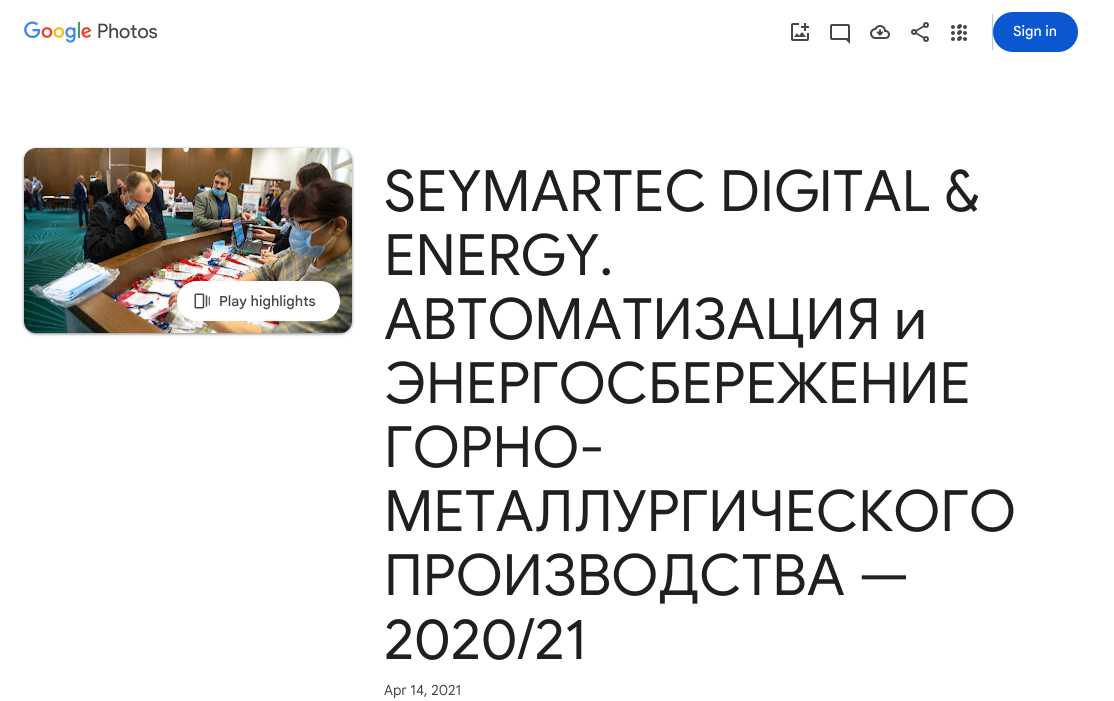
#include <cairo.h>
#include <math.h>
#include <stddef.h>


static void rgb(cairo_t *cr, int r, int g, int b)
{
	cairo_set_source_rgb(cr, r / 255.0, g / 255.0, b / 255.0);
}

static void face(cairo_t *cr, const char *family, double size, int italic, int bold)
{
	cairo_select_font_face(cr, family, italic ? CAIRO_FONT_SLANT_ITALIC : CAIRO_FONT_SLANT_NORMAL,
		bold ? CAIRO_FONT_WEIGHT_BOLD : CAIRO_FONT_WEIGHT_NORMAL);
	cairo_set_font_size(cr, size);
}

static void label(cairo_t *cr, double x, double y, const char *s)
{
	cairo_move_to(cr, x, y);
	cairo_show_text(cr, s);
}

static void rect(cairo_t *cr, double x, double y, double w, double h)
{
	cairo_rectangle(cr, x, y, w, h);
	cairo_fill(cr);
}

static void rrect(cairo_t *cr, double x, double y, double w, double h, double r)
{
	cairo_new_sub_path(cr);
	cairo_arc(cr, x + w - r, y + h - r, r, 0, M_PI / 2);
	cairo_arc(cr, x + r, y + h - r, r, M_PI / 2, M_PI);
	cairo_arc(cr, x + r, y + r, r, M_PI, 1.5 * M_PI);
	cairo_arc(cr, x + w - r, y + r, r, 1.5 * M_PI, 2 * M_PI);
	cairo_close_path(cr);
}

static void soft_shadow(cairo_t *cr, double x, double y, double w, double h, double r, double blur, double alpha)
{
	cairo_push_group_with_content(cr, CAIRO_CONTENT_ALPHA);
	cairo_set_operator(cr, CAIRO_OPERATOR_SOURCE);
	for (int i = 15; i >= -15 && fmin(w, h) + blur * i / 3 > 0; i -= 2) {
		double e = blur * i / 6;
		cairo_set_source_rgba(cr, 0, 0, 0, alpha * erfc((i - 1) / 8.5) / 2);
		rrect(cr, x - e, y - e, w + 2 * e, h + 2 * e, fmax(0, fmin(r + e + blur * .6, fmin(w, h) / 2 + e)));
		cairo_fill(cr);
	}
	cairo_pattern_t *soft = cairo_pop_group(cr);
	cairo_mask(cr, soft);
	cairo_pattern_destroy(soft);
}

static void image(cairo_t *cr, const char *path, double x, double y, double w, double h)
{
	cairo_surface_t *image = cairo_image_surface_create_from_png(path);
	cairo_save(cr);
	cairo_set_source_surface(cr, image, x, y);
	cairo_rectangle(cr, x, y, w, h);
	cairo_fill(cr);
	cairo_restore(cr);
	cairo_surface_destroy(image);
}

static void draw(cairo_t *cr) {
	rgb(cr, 255, 255, 255);
	cairo_paint(cr);
	image(cr, "image0.png", 24, 21, 68, 22);
	face(cr, "Product Sans", 20, 0, 0);
	rgb(cr, 68, 71, 70);
	label(cr, 97, 38, "Photos");
	image(cr, "image1.png", 791, 23, 18, 18);
	image(cr, "image2.png", 830, 24, 20, 20);
	image(cr, "image3.png", 870, 25, 20, 14);
	image(cr, "image4.png", 911, 22, 18, 20);
	image(cr, "image5.png", 958, 24, 4, 16);
	rgb(cr, 196, 199, 197);
	rect(cr, 992, 14, 1, 36);
	rgb(cr, 0, 0, 0);
	soft_shadow(cr, 23, 148, 330, 187, 13, 1.5, 0.15);
	soft_shadow(cr, 24, 149, 328, 185, 12, 1, 0.3);
	image(cr, "image6.png", 24, 148, 328, 185);
	rgb(cr, 255, 255, 255);
	rrect(cr, 177, 281, 163, 40, 20);
	cairo_fill(cr);
	image(cr, "image7.png", 194, 293, 16, 16);
	face(cr, "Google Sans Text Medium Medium", 14, 0, 0);
	rgb(cr, 68, 71, 70);
	label(cr, 219, 306, "Play highlights");
	face(cr, "Google Sans", 57, 0, 0);
	rgb(cr, 31, 31, 31);
	label(cr, 384, 211, "SEYMARTEC DIGITAL &");
	label(cr, 384, 275, "ENERGY.");
	label(cr, 384, 339, "АВТОМАТИЗАЦИЯ и");
	label(cr, 384, 403, "ЭНЕРГОСБЕРЕЖЕНИЕ");
	label(cr, 384, 467, "ГОРНО-");
	label(cr, 384, 531, "МЕТАЛЛУРГИЧЕСКОГО");
	label(cr, 384, 595, "ПРОИЗВОДСТВА —");
	label(cr, 384, 659, "2020/21");
	face(cr, "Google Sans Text", 14, 0, 0);
	rgb(cr, 68, 71, 70);
	label(cr, 384, 695, "Apr 14, 2021");
	image(cr, "image8.png", 951, 25, 16, 16);
	rgb(cr, 11, 87, 208);
	rrect(cr, 993, 12, 85, 40, 20);
	cairo_fill(cr);
	face(cr, "Google Sans Text Medium Medium", 14, 0, 0);
	rgb(cr, 255, 255, 255);
	label(cr, 1013, 36, "Sign in");
}

int main(void) {
	cairo_surface_t *surface = cairo_image_surface_create(CAIRO_FORMAT_RGB24, 1114, 701);
	cairo_t *cr = cairo_create(surface);
	cairo_font_options_t *options = cairo_font_options_create();
	cairo_font_options_set_hint_metrics(options, CAIRO_HINT_METRICS_OFF);
	cairo_font_options_set_hint_style(options, CAIRO_HINT_STYLE_NONE);
	cairo_set_font_options(cr, options);
	cairo_set_miter_limit(cr, 4);
	draw(cr);
	cairo_surface_write_to_png(surface, "render.png");
	cairo_font_options_destroy(options);
	cairo_destroy(cr);
	cairo_surface_destroy(surface);
	return 0;
}
